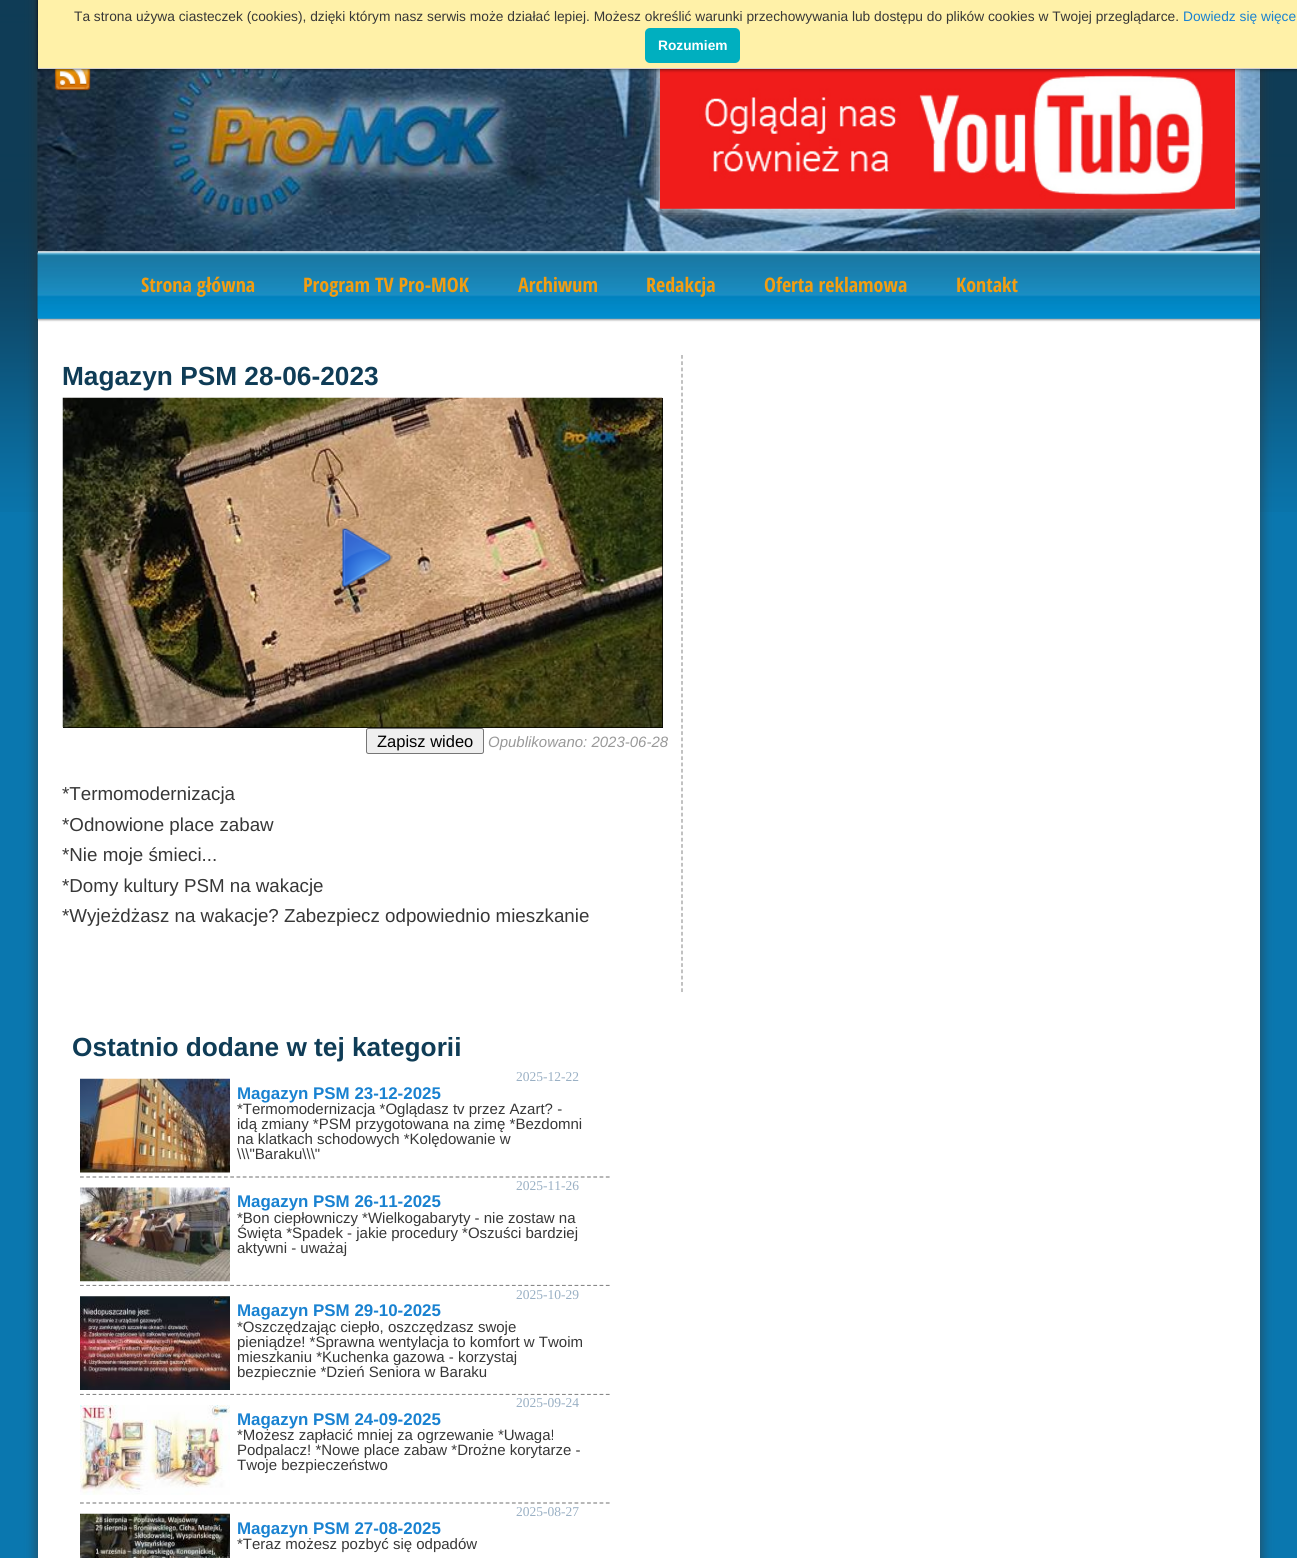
#include <cairo.h>
#include <math.h>
#include <stddef.h>


static void rgb(cairo_t *cr, int r, int g, int b)
{
	cairo_set_source_rgb(cr, r / 255.0, g / 255.0, b / 255.0);
}

static void face(cairo_t *cr, const char *family, double size, int italic, int bold)
{
	cairo_select_font_face(cr, family, italic ? CAIRO_FONT_SLANT_ITALIC : CAIRO_FONT_SLANT_NORMAL,
		bold ? CAIRO_FONT_WEIGHT_BOLD : CAIRO_FONT_WEIGHT_NORMAL);
	cairo_set_font_size(cr, size);
}

static void label(cairo_t *cr, double x, double y, const char *s)
{
	cairo_move_to(cr, x, y);
	cairo_show_text(cr, s);
}

static void rect(cairo_t *cr, double x, double y, double w, double h)
{
	cairo_rectangle(cr, x, y, w, h);
	cairo_fill(cr);
}

static void rrect(cairo_t *cr, double x, double y, double w, double h, double r)
{
	cairo_new_sub_path(cr);
	cairo_arc(cr, x + w - r, y + h - r, r, 0, M_PI / 2);
	cairo_arc(cr, x + r, y + h - r, r, M_PI / 2, M_PI);
	cairo_arc(cr, x + r, y + r, r, M_PI, 1.5 * M_PI);
	cairo_arc(cr, x + w - r, y + r, r, 1.5 * M_PI, 2 * M_PI);
	cairo_close_path(cr);
}

static void soft_shadow(cairo_t *cr, double x, double y, double w, double h, double r, double blur, double alpha)
{
	cairo_push_group_with_content(cr, CAIRO_CONTENT_ALPHA);
	cairo_set_operator(cr, CAIRO_OPERATOR_SOURCE);
	for (int i = 15; i >= -15 && fmin(w, h) + blur * i / 3 > 0; i -= 2) {
		double e = blur * i / 6;
		cairo_set_source_rgba(cr, 0, 0, 0, alpha * erfc((i - 1) / 8.5) / 2);
		rrect(cr, x - e, y - e, w + 2 * e, h + 2 * e, fmax(0, fmin(r + e + blur * .6, fmin(w, h) / 2 + e)));
		cairo_fill(cr);
	}
	cairo_pattern_t *soft = cairo_pop_group(cr);
	cairo_mask(cr, soft);
	cairo_pattern_destroy(soft);
}

static void image(cairo_t *cr, const char *path, double x, double y, double w, double h)
{
	cairo_surface_t *image = cairo_image_surface_create_from_png(path);
	cairo_save(cr);
	cairo_set_source_surface(cr, image, x, y);
	cairo_rectangle(cr, x, y, w, h);
	cairo_fill(cr);
	cairo_restore(cr);
	cairo_surface_destroy(image);
}

static void draw(cairo_t *cr) {
	rgb(cr, 10, 119, 175);
	cairo_paint(cr);
	image(cr, "image0.png", 0, 0, 1297, 512);
	rgb(cr, 50, 50, 50);
	soft_shadow(cr, 35, -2, 1228, 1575, 0, 5, 0.5);
	rgb(cr, 255, 255, 255);
	rect(cr, 38, 251, 1222, 1307);
	rgb(cr, 0, 0, 0);
	soft_shadow(cr, 38, 254, 1222, 66, 0, 1, 0.4);
	image(cr, "image1.png", 37, 0, 1223, 252);
	image(cr, "image2.png", 54, 69, 37, 24);
	rgb(cr, 240, 240, 240);
	soft_shadow(cr, 660, 59, 575, 150, 0, 7.5, 1);
	image(cr, "image3.png", 660, 69, 575, 140);
	rgb(cr, 0, 0, 0);
	soft_shadow(cr, 38, 0, 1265, 69, 0, 2, 0.8);
	rgb(cr, 255, 241, 168);
	rect(cr, 38, 0, 1259, 68);
	rgb(cr, 211, 208, 208);
	rect(cr, 38, 68, 1259, 1);
	face(cr, "Liberation Sans", 13.75, 0, 0);
	rgb(cr, 55, 55, 55);
	label(cr, 74, 21, "Ta strona używa ciasteczek (cookies), dzięki którym nasz serwis może działać lepiej. Możesz określić warunki przechowywania lub dostępu do plików cookies w Twojej przeglądarce.");
	rgb(cr, 25, 130, 209);
	label(cr, 1183, 21, "Dowiedz się więce");
	rgb(cr, 0, 175, 191);
	rrect(cr, 645, 28, 95, 35, 5);
	cairo_fill(cr);
	face(cr, "Liberation Sans", 13.75, 0, 1);
	rgb(cr, 255, 255, 255);
	label(cr, 658, 50, "Rozumiem");
	image(cr, "image4.png", 37, 252, 1223, 67);
	face(cr, "Open Sans Condensed", 20, 0, 1);
	rgb(cr, 242, 157, 17);
	label(cr, 141, 292, "Strona główna");
	label(cr, 303, 292, "Program TV Pro-MOK");
	label(cr, 518, 292, "Archiwum");
	label(cr, 646, 292, "Redakcja");
	label(cr, 764, 292, "Oferta reklamowa");
	label(cr, 956, 292, "Kontakt");
	cairo_new_path(cr);
	cairo_move_to(cr, 682, 355);
	cairo_line_to(cr, 682, 992.5);
	rgb(cr, 153, 153, 153);
	cairo_set_line_width(cr, 1.2);
	cairo_set_dash(cr, (double[]){3.75, 2.52}, 2, 0);
	cairo_stroke(cr);
	face(cr, "Liberation Sans", 26.25, 0, 1);
	rgb(cr, 15, 60, 86);
	label(cr, 62, 385, "Magazyn PSM 28-06-2023");
	rgb(cr, 0, 0, 0);
	rect(cr, 63, 398, 600, 330);
	image(cr, "image5.png", 62, 397, 601, 331);
	image(cr, "image6.png", 342, 528, 51, 61);
	rgb(cr, 239, 239, 239);
	rrect(cr, 366.5, 728.5, 117, 25, 2);
	cairo_fill_preserve(cr);
	rgb(cr, 118, 118, 118);
	cairo_set_line_width(cr, 1);
	cairo_set_dash(cr, NULL, 0, 0);
	cairo_stroke(cr);
	face(cr, "Liberation Sans", 16.5, 0, 0);
	rgb(cr, 0, 0, 0);
	label(cr, 377, 747, "Zapisz wideo");
	face(cr, "Liberation Sans", 15, 1, 0);
	rgb(cr, 153, 153, 153);
	label(cr, 488, 747, "Opublikowano: 2023-06-28");
	face(cr, "Liberation Sans", 18.75, 0, 0);
	rgb(cr, 55, 55, 55);
	label(cr, 62, 800, "*Termomodernizacja");
	label(cr, 62, 831, "*Odnowione place zabaw");
	label(cr, 62, 861, "*Nie moje śmieci...");
	label(cr, 62, 892, "*Domy kultury PSM na wakacje");
	label(cr, 62, 922, "*Wyjeżdżasz na wakacje? Zabezpiecz odpowiednio mieszkanie");
	face(cr, "Liberation Sans", 26.25, 0, 1);
	rgb(cr, 15, 60, 86);
	label(cr, 72, 1056, "Ostatnio dodane w tej kategorii");
	cairo_new_path(cr);
	cairo_move_to(cr, 80, 1177);
	cairo_line_to(cr, 610, 1177);
	rgb(cr, 136, 136, 136);
	cairo_set_line_width(cr, 1.2);
	cairo_set_dash(cr, (double[]){3.75, 2.51}, 2, 0);
	cairo_stroke(cr);
	image(cr, "image7.png", 80, 1078, 150, 95);
	face(cr, "Liberation Serif", 13.5, 0, 0);
	rgb(cr, 154, 176, 196);
	label(cr, 516, 1081, "2025-12-22");
	face(cr, "Liberation Sans", 16.9, 0, 1);
	rgb(cr, 25, 130, 209);
	label(cr, 237, 1099, "Magazyn PSM 23-12-2025");
	face(cr, "Liberation Sans", 15, 0, 0);
	rgb(cr, 55, 55, 55);
	label(cr, 237, 1114, "*Termomodernizacja *Oglądasz tv przez Azart? -");
	label(cr, 237, 1129, "idą zmiany *PSM przygotowana na zimę *Bezdomni");
	label(cr, 237, 1144, "na klatkach schodowych *Kolędowanie w");
	label(cr, 237, 1159, "\\\\\\\"Baraku\\\\\\\"");
	cairo_new_path(cr);
	cairo_move_to(cr, 80, 1285.5);
	cairo_line_to(cr, 610, 1285.5);
	rgb(cr, 136, 136, 136);
	cairo_stroke(cr);
	image(cr, "image8.png", 80, 1187, 150, 95);
	face(cr, "Liberation Serif", 13.5, 0, 0);
	rgb(cr, 154, 176, 196);
	label(cr, 516, 1190, "2025-11-26");
	face(cr, "Liberation Sans", 16.9, 0, 1);
	rgb(cr, 25, 130, 209);
	label(cr, 237, 1207, "Magazyn PSM 26-11-2025");
	face(cr, "Liberation Sans", 15, 0, 0);
	rgb(cr, 55, 55, 55);
	label(cr, 237, 1223, "*Bon ciepłowniczy *Wielkogabaryty - nie zostaw na");
	label(cr, 237, 1238, "Święta *Spadek - jakie procedury *Oszuści bardziej");
	label(cr, 237, 1253, "aktywni - uważaj");
	rgb(cr, 255, 255, 255);
	rect(cr, 80, 1286, 530, 1);
	cairo_new_path(cr);
	cairo_move_to(cr, 80, 1394.5);
	cairo_line_to(cr, 610, 1394.5);
	rgb(cr, 136, 136, 136);
	cairo_stroke(cr);
	image(cr, "image9.png", 80, 1296, 150, 94);
	face(cr, "Liberation Serif", 13.5, 0, 0);
	rgb(cr, 154, 176, 196);
	label(cr, 516, 1299, "2025-10-29");
	face(cr, "Liberation Sans", 16.9, 0, 1);
	rgb(cr, 25, 130, 209);
	label(cr, 237, 1316, "Magazyn PSM 29-10-2025");
	face(cr, "Liberation Sans", 15, 0, 0);
	rgb(cr, 55, 55, 55);
	label(cr, 237, 1332, "*Oszczędzając ciepło, oszczędzasz swoje");
	label(cr, 237, 1347, "pieniądze! *Sprawna wentylacja to komfort w Twoim");
	label(cr, 237, 1362, "mieszkaniu *Kuchenka gazowa - korzystaj");
	label(cr, 237, 1377, "bezpiecznie *Dzień Seniora w Baraku");
	rgb(cr, 255, 255, 255);
	rect(cr, 80, 1395, 530, 1);
	cairo_new_path(cr);
	cairo_move_to(cr, 80, 1503);
	cairo_line_to(cr, 610, 1503);
	rgb(cr, 136, 136, 136);
	cairo_stroke(cr);
	image(cr, "image10.png", 80, 1405, 150, 90);
	face(cr, "Liberation Serif", 13.5, 0, 0);
	rgb(cr, 154, 176, 196);
	label(cr, 516, 1407, "2025-09-24");
	face(cr, "Liberation Sans", 16.9, 0, 1);
	rgb(cr, 25, 130, 209);
	label(cr, 237, 1425, "Magazyn PSM 24-09-2025");
	face(cr, "Liberation Sans", 15, 0, 0);
	rgb(cr, 55, 55, 55);
	label(cr, 237, 1440, "*Możesz zapłacić mniej za ogrzewanie *Uwaga!");
	label(cr, 237, 1455, "Podpalacz! *Nowe place zabaw *Drożne korytarze -");
	label(cr, 237, 1470, "Twoje bezpieczeństwo");
	image(cr, "image11.png", 80, 1513, 150, 45);
	face(cr, "Liberation Serif", 13.5, 0, 0);
	rgb(cr, 154, 176, 196);
	label(cr, 516, 1516, "2025-08-27");
	face(cr, "Liberation Sans", 16.9, 0, 1);
	rgb(cr, 25, 130, 209);
	label(cr, 237, 1534, "Magazyn PSM 27-08-2025");
	face(cr, "Liberation Sans", 15, 0, 0);
	rgb(cr, 55, 55, 55);
	label(cr, 237, 1549, "*Teraz możesz pozbyć się odpadów");
}

int main(void) {
	cairo_surface_t *surface = cairo_image_surface_create(CAIRO_FORMAT_RGB24, 1297, 1558);
	cairo_t *cr = cairo_create(surface);
	cairo_font_options_t *options = cairo_font_options_create();
	cairo_font_options_set_hint_metrics(options, CAIRO_HINT_METRICS_OFF);
	cairo_font_options_set_hint_style(options, CAIRO_HINT_STYLE_NONE);
	cairo_set_font_options(cr, options);
	cairo_set_miter_limit(cr, 4);
	draw(cr);
	cairo_surface_write_to_png(surface, "render.png");
	cairo_font_options_destroy(options);
	cairo_destroy(cr);
	cairo_surface_destroy(surface);
	return 0;
}
